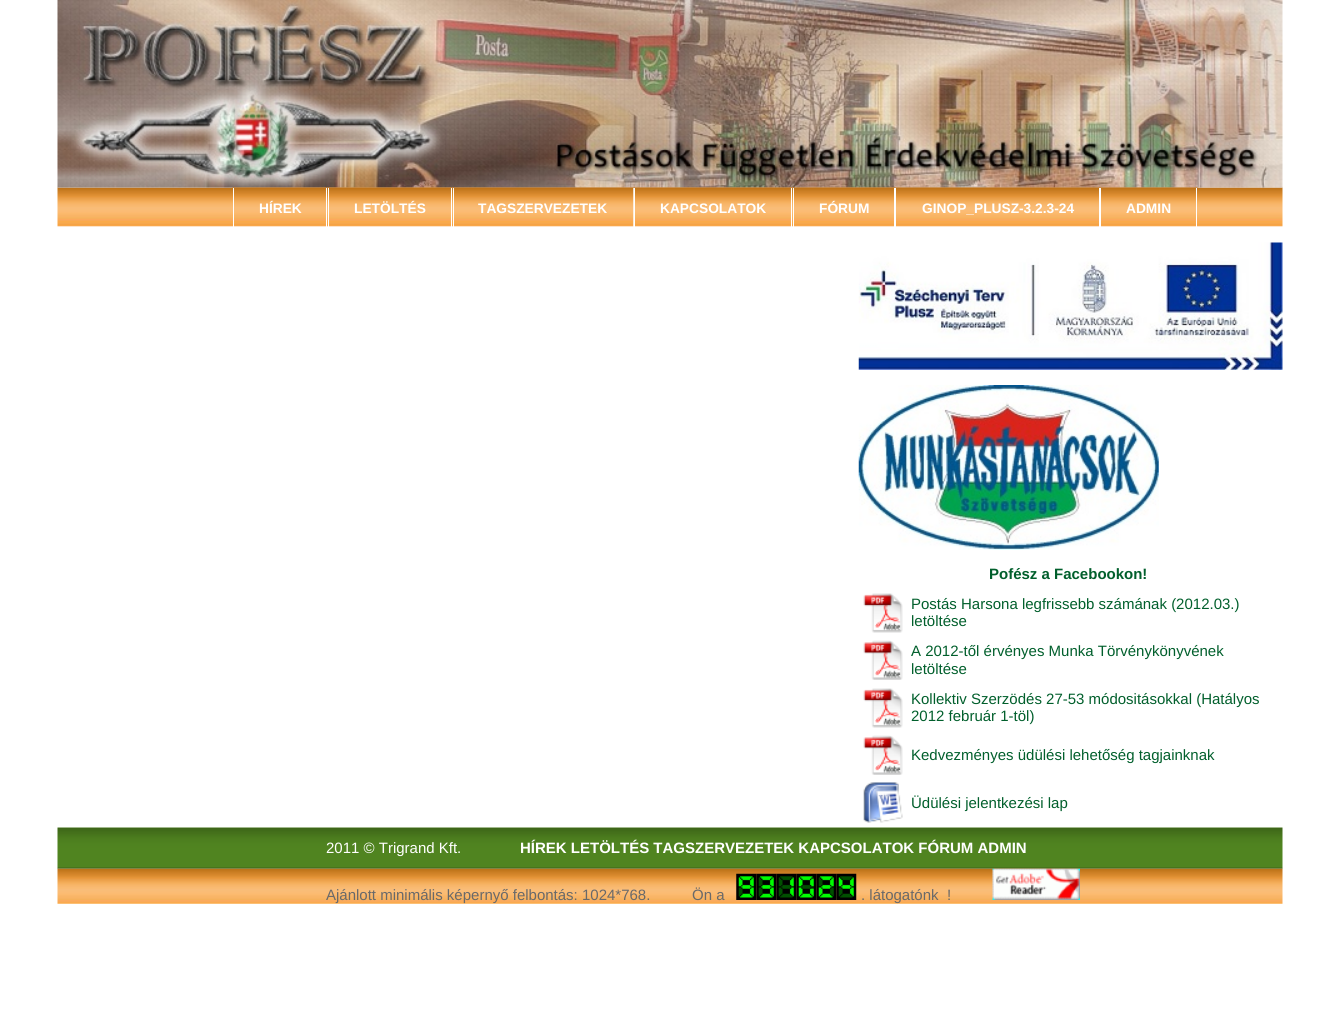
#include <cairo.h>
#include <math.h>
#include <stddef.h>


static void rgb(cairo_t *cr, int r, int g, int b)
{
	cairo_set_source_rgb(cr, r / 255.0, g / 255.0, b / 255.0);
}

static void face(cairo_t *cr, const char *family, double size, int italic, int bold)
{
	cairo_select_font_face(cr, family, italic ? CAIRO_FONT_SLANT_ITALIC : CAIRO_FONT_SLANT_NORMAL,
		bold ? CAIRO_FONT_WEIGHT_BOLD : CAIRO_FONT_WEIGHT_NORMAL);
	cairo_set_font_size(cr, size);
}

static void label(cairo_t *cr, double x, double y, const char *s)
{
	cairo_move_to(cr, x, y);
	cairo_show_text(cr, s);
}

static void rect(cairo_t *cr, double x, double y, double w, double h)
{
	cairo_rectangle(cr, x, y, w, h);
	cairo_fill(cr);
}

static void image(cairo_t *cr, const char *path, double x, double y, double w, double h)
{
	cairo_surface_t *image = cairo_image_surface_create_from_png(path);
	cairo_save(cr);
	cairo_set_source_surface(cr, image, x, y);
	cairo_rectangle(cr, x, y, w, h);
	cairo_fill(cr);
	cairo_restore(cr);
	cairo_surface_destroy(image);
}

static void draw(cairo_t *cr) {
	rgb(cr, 255, 255, 255);
	cairo_paint(cr);
	image(cr, "image1.png", 57, 187, 1226, 40);
	image(cr, "image0.png", 57, 0, 1226, 188);
	image(cr, "image2.png", 232, 187, 96, 1);
	rgb(cr, 255, 255, 255);
	rect(cr, 326, 188, 1, 40);
	rect(cr, 233, 188, 1, 40);
	face(cr, "Liberation Sans", 13.75, 0, 1);
	label(cr, 259, 213, "HÍREK");
	image(cr, "image3.png", 327, 187, 126, 1);
	rect(cr, 451, 188, 1, 40);
	rect(cr, 328, 188, 1, 40);
	label(cr, 354, 213, "LETÖLTÉS");
	image(cr, "image4.png", 452, 187, 182, 1);
	rect(cr, 633, 188, 1, 40);
	rect(cr, 453, 188, 1, 40);
	label(cr, 478, 213, "TAGSZERVEZETEK");
	image(cr, "image5.png", 633, 187, 160, 40);
	rect(cr, 791, 188, 1, 40);
	rect(cr, 634, 188, 1, 40);
	label(cr, 660, 213, "KAPCSOLATOK");
	image(cr, "image6.png", 792, 187, 103, 1);
	rect(cr, 894, 188, 2, 40);
	rect(cr, 793, 188, 1, 40);
	label(cr, 819, 213, "FÓRUM");
	cairo_set_source_rgba(cr, 0.741, 0.447, 0.102, 0.5);
	rect(cr, 895, 187, 205, 1);
	rgb(cr, 255, 255, 255);
	rect(cr, 1099, 188, 2, 40);
	label(cr, 922, 213, "GINOP_PLUSZ-3.2.3-24");
	image(cr, "image7.png", 1100, 187, 98, 1);
	rect(cr, 1196, 188, 1, 40);
	label(cr, 1126, 213, "ADMIN");
	image(cr, "image8.png", 858, 242, 425, 128);
	image(cr, "image9.png", 858, 385, 301, 165);
	face(cr, "Liberation Sans", 15, 0, 1);
	rgb(cr, 1, 95, 44);
	label(cr, 989, 579, "Pofész a Facebookon!");
	image(cr, "image10.png", 863, 593, 40, 40);
	face(cr, "Liberation Sans", 15, 0, 0);
	label(cr, 911, 609, "Postás Harsona legfrissebb számának (2012.03.)");
	label(cr, 911, 626, "letöltése");
	image(cr, "image11.png", 863, 640, 40, 40);
	label(cr, 911, 656, "A 2012-től érvényes Munka Törvénykönyvének");
	label(cr, 911, 674, "letöltése");
	image(cr, "image10.png", 863, 688, 40, 40);
	label(cr, 911, 704, "Kollektiv Szerzödés 27-53 módositásokkal (Hatályos");
	label(cr, 911, 721, "2012 február 1-töl)");
	image(cr, "image11.png", 863, 735, 40, 40);
	label(cr, 911, 760, "Kedvezményes üdülési lehetőség tagjainknak");
	image(cr, "image12.png", 863, 782, 40, 41);
	label(cr, 911, 808, "Üdülési jelentkezési lap");
	image(cr, "image13.png", 57, 827, 1226, 42);
	rgb(cr, 255, 255, 255);
	label(cr, 326, 853, "2011 © Trigrand Kft.");
	face(cr, "Liberation Sans", 15, 0, 1);
	label(cr, 520, 853, "HÍREK LETÖLTÉS TAGSZERVEZETEK KAPCSOLATOK FÓRUM ADMIN");
	image(cr, "image14.png", 57, 868, 1226, 36);
	face(cr, "Liberation Sans", 15, 0, 0);
	rgb(cr, 105, 105, 105);
	label(cr, 326, 900, "Ajánlott minimális képernyő felbontás: 1024*768.          Ön a");
	image(cr, "image15.png", 736, 873, 21, 27);
	image(cr, "image16.png", 756, 873, 21, 27);
	image(cr, "image17.png", 776, 873, 21, 27);
	image(cr, "image18.png", 796, 873, 21, 27);
	image(cr, "image19.png", 816, 873, 21, 27);
	image(cr, "image20.png", 836, 873, 21, 27);
	label(cr, 861, 900, ". látogatónk  !");
	image(cr, "image21.png", 992, 868, 88, 32);
}

int main(void) {
	cairo_surface_t *surface = cairo_image_surface_create(CAIRO_FORMAT_RGB24, 1340, 1014);
	cairo_t *cr = cairo_create(surface);
	cairo_font_options_t *options = cairo_font_options_create();
	cairo_font_options_set_hint_metrics(options, CAIRO_HINT_METRICS_OFF);
	cairo_font_options_set_hint_style(options, CAIRO_HINT_STYLE_NONE);
	cairo_set_font_options(cr, options);
	cairo_set_miter_limit(cr, 4);
	draw(cr);
	cairo_surface_write_to_png(surface, "render.png");
	cairo_font_options_destroy(options);
	cairo_destroy(cr);
	cairo_surface_destroy(surface);
	return 0;
}
